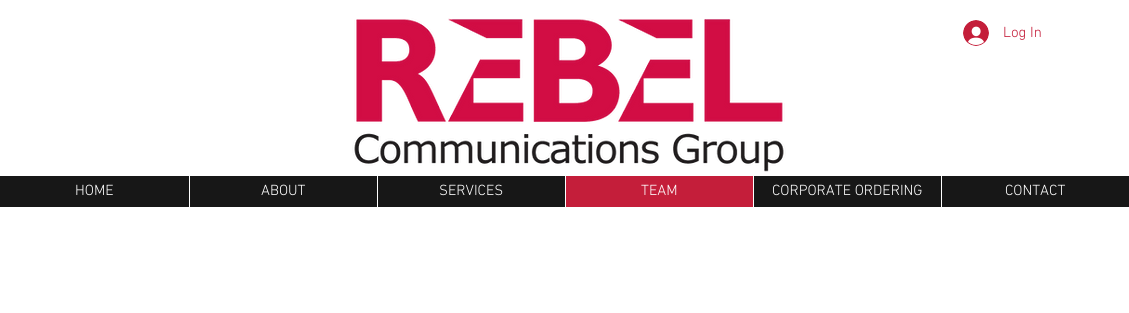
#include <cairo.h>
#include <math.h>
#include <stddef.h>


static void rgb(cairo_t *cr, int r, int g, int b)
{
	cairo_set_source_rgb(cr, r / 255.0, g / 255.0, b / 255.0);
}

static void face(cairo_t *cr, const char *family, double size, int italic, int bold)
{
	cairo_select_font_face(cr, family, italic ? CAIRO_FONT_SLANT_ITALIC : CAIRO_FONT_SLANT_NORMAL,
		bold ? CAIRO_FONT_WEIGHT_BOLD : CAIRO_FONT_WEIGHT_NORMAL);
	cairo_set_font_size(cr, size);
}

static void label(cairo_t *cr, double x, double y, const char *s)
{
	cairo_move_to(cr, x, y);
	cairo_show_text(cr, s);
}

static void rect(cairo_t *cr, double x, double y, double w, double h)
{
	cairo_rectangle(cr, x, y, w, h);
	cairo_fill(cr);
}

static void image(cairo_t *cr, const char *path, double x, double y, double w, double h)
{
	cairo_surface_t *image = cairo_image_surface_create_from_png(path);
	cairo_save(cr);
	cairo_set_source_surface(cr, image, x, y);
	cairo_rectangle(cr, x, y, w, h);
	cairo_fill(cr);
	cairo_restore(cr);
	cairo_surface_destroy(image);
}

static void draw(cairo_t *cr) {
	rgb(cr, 255, 255, 255);
	cairo_paint(cr);
	image(cr, "image0.png", 352, 18, 434, 154);
	image(cr, "image1.png", 963, 20, 26, 26);
	face(cr, "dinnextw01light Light", 15, 0, 0);
	rgb(cr, 196, 30, 58);
	label(cr, 1003, 37, "Log In");
	rgb(cr, 23, 23, 23);
	rect(cr, 0, 176, 1129, 31);
	rgb(cr, 255, 255, 255);
	label(cr, 75, 195, "HOME");
	rect(cr, 189, 176, 1, 31);
	label(cr, 261, 195, "ABOUT");
	rect(cr, 377, 176, 1, 31);
	label(cr, 439, 195, "SERVICES");
	rgb(cr, 196, 30, 58);
	rect(cr, 566, 176, 187, 31);
	rgb(cr, 255, 255, 255);
	rect(cr, 565, 176, 1, 31);
	label(cr, 641, 195, "TEAM");
	rect(cr, 753, 176, 1, 31);
	label(cr, 772, 195, "CORPORATE ORDERING");
	rect(cr, 941, 176, 1, 31);
	label(cr, 1005, 195, "CONTACT");
}

int main(void) {
	cairo_surface_t *surface = cairo_image_surface_create(CAIRO_FORMAT_RGB24, 1129, 313);
	cairo_t *cr = cairo_create(surface);
	cairo_font_options_t *options = cairo_font_options_create();
	cairo_font_options_set_hint_metrics(options, CAIRO_HINT_METRICS_OFF);
	cairo_font_options_set_hint_style(options, CAIRO_HINT_STYLE_NONE);
	cairo_set_font_options(cr, options);
	cairo_set_miter_limit(cr, 4);
	draw(cr);
	cairo_surface_write_to_png(surface, "render.png");
	cairo_font_options_destroy(options);
	cairo_destroy(cr);
	cairo_surface_destroy(surface);
	return 0;
}
